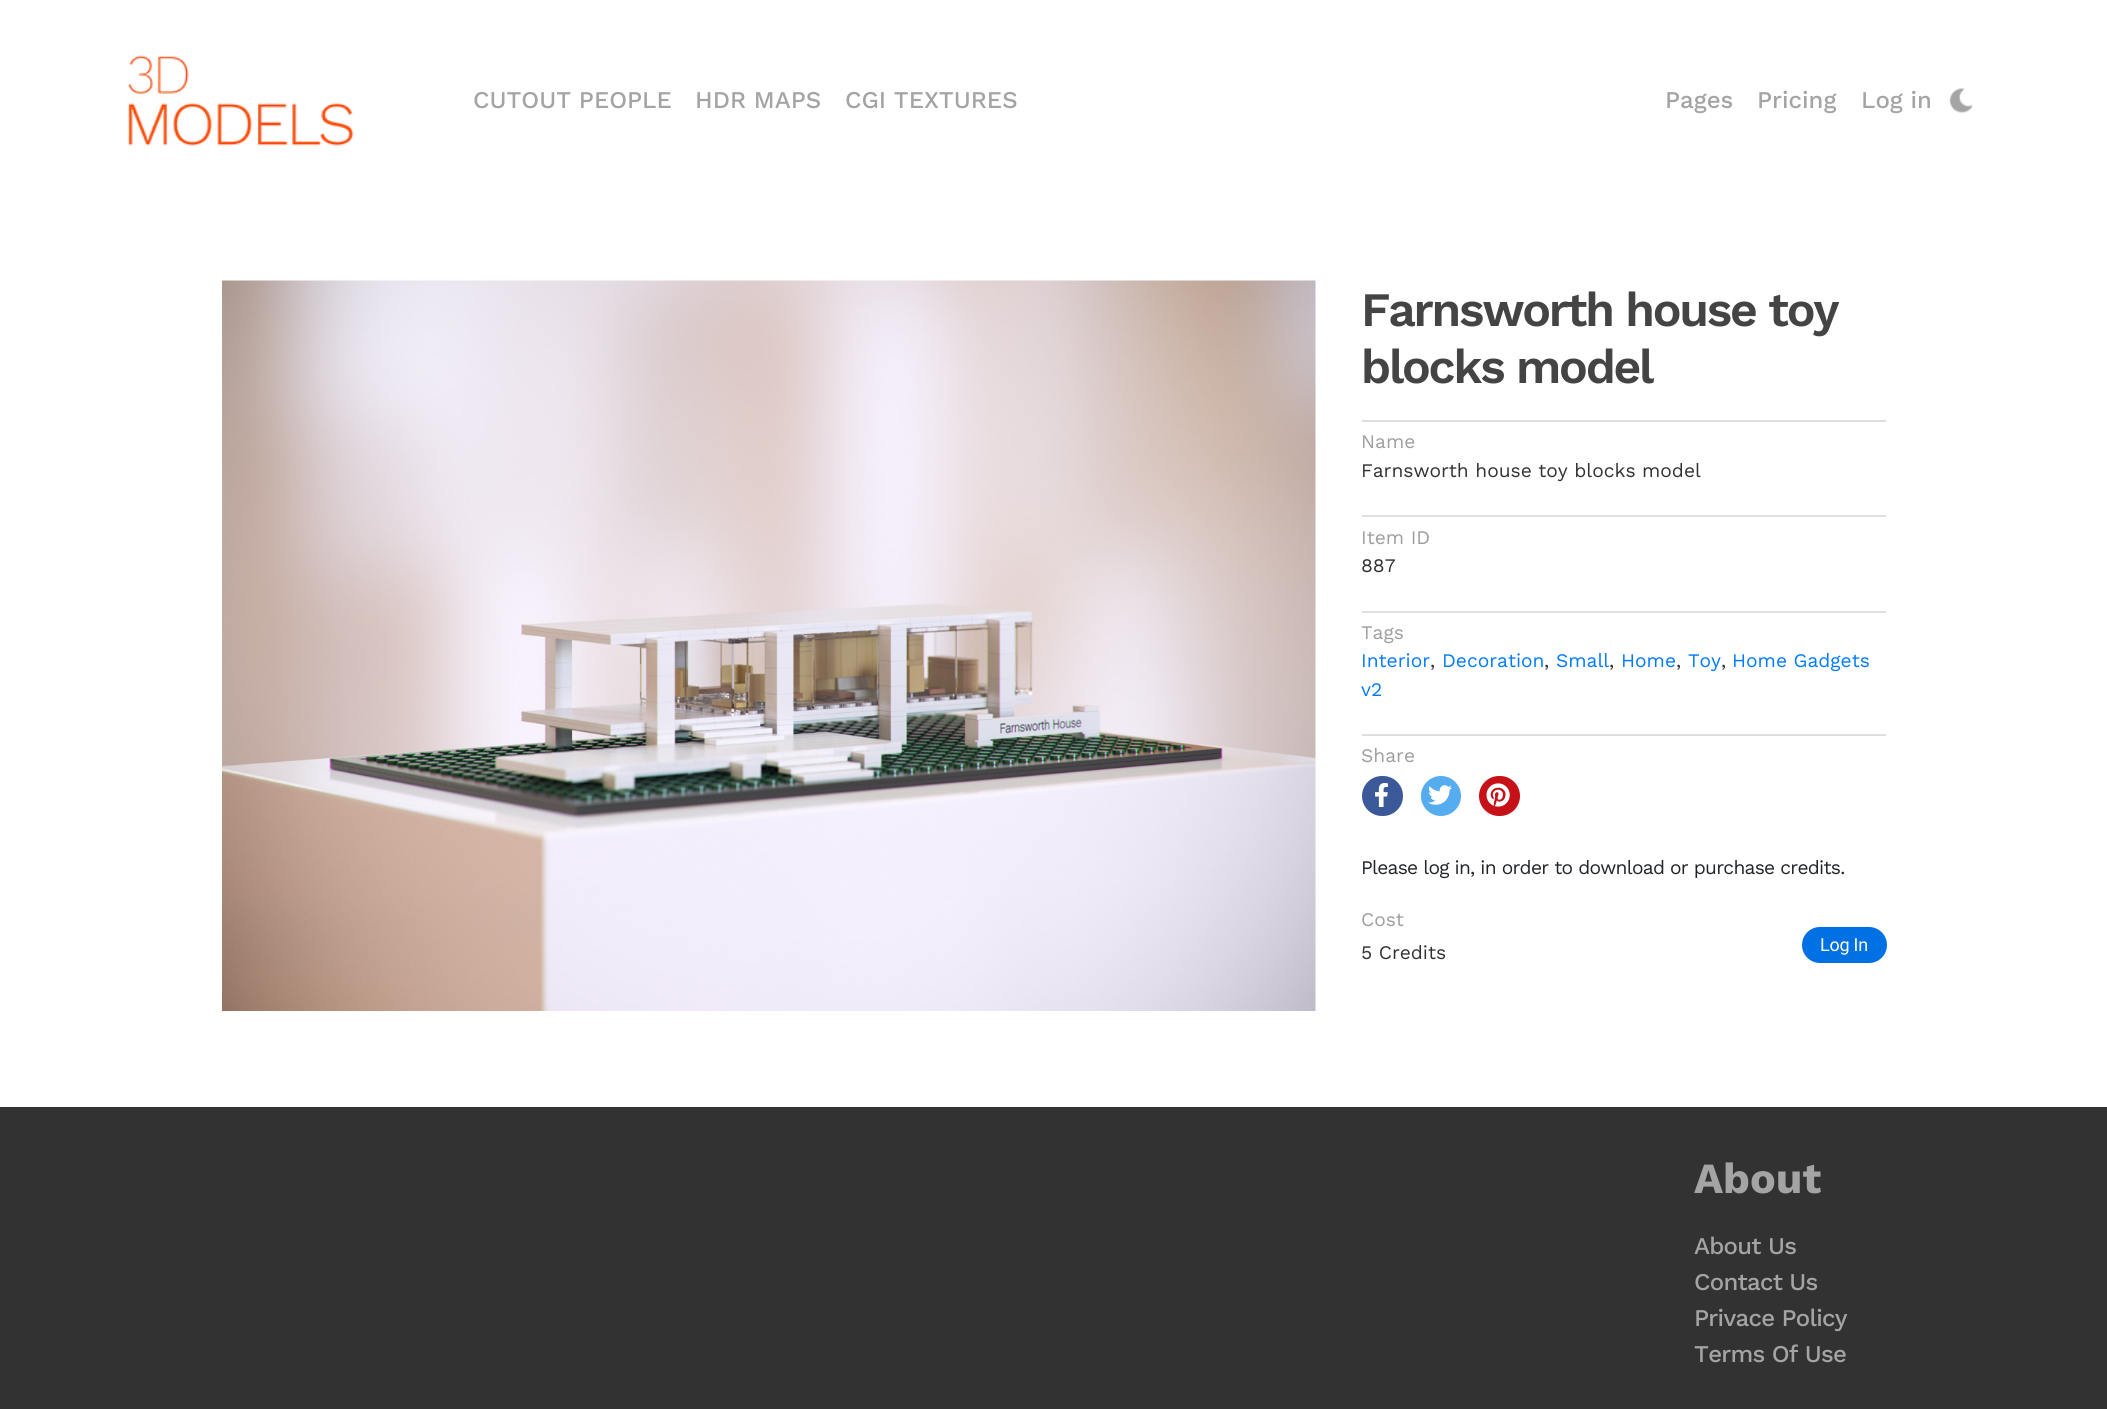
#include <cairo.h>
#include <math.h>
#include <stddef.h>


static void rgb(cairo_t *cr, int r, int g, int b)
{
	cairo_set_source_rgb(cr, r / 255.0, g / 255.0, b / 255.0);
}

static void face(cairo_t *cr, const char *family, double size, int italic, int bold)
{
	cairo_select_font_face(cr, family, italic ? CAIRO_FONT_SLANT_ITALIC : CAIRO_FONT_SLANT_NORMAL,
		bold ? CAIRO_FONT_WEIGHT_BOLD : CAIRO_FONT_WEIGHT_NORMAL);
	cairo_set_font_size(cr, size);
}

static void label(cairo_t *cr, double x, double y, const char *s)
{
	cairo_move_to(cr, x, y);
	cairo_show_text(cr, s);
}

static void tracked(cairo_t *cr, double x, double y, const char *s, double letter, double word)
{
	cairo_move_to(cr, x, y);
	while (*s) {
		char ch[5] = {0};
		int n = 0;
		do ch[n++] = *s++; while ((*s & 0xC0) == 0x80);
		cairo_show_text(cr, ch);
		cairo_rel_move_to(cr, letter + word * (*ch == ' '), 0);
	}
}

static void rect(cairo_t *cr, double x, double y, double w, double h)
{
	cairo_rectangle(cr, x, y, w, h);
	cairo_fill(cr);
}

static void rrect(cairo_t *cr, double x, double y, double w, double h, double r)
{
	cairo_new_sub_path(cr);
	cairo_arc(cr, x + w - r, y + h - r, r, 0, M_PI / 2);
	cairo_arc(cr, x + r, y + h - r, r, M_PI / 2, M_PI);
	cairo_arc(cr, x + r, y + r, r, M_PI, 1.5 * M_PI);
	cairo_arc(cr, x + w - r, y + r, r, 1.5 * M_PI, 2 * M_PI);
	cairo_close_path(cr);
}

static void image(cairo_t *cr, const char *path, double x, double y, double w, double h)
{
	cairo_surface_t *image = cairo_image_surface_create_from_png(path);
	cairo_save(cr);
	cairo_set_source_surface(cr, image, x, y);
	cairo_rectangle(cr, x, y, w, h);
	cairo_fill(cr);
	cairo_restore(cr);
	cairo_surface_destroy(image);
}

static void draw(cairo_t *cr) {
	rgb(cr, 255, 255, 255);
	cairo_paint(cr);
	image(cr, "image0.png", 128, 55, 226, 91);
	face(cr, "Work Sans Medium", 24, 0, 0);
	rgb(cr, 164, 164, 164);
	label(cr, 473, 108, "CUTOUT PEOPLE");
	label(cr, 695, 108, "HDR MAPS");
	label(cr, 845, 108, "CGI TEXTURES");
	label(cr, 1665, 108, "Pages");
	label(cr, 1757, 108, "Pricing");
	label(cr, 1861, 108, "Log in");
	image(cr, "image1.png", 1949, 88, 24, 25);
	image(cr, "image2.png", 222, 280, 1094, 731);
	face(cr, "Work Sans SemiBold", 48, 0, 0);
	rgb(cr, 68, 68, 68);
	tracked(cr, 1361, 326, "Farnsworth house toy", -2.2, 0);
	tracked(cr, 1361, 383, "blocks model", -2.2, 0);
	rgb(cr, 223, 223, 223);
	rect(cr, 1362, 420, 524, 2);
	face(cr, "Work Sans", 19.2, 0, 0);
	rgb(cr, 158, 158, 158);
	label(cr, 1361, 448, "Name");
	rgb(cr, 50, 50, 50);
	label(cr, 1361, 477, "Farnsworth house toy blocks model");
	rgb(cr, 223, 223, 223);
	rect(cr, 1362, 515, 524, 2);
	rgb(cr, 158, 158, 158);
	label(cr, 1361, 544, "Item ID");
	rgb(cr, 50, 50, 50);
	label(cr, 1361, 572, "887");
	rgb(cr, 223, 223, 223);
	rect(cr, 1362, 611, 524, 2);
	rgb(cr, 158, 158, 158);
	label(cr, 1361, 639, "Tags");
	rgb(cr, 0, 123, 255);
	label(cr, 1361, 667, "Interior");
	rgb(cr, 50, 50, 50);
	label(cr, 1430, 667, ",");
	rgb(cr, 0, 123, 255);
	label(cr, 1442, 667, "Decoration");
	rgb(cr, 50, 50, 50);
	label(cr, 1544, 667, ",");
	rgb(cr, 0, 123, 255);
	label(cr, 1556, 667, "Small");
	rgb(cr, 50, 50, 50);
	label(cr, 1609, 667, ",");
	rgb(cr, 0, 123, 255);
	label(cr, 1621, 667, "Home");
	rgb(cr, 50, 50, 50);
	label(cr, 1676, 667, ",");
	rgb(cr, 0, 123, 255);
	label(cr, 1688, 667, "Toy");
	rgb(cr, 50, 50, 50);
	label(cr, 1721, 667, ",");
	rgb(cr, 0, 123, 255);
	label(cr, 1732, 667, "Home Gadgets");
	label(cr, 1361, 696, "v2");
	rgb(cr, 223, 223, 223);
	rect(cr, 1362, 734, 524, 2);
	rgb(cr, 158, 158, 158);
	label(cr, 1361, 762, "Share");
	rgb(cr, 59, 89, 152);
	rrect(cr, 1362, 776, 41, 40, 20);
	cairo_fill(cr);
	image(cr, "image3.png", 1375, 783, 13, 24);
	rgb(cr, 85, 172, 238);
	cairo_arc(cr, 1441, 796, 20, 0, 2 * M_PI);
	cairo_fill(cr);
	image(cr, "image4.png", 1428, 785, 24, 20);
	rgb(cr, 198, 17, 24);
	rrect(cr, 1479, 776, 41, 40, 20);
	cairo_fill(cr);
	image(cr, "image5.png", 1486, 783, 24, 24);
	rgb(cr, 33, 37, 41);
	tracked(cr, 1361, 874, "Please log in, in order to download or purchase credits.", -0.72, 0);
	rgb(cr, 158, 158, 158);
	label(cr, 1361, 926, "Cost");
	rgb(cr, 50, 50, 50);
	label(cr, 1361, 959, "5 Credits");
	rgb(cr, 0, 113, 227);
	rrect(cr, 1802, 927, 85, 36, 18);
	cairo_fill(cr);
	face(cr, "Roboto", 18, 0, 0);
	rgb(cr, 255, 255, 255);
	tracked(cr, 1820, 951, "Log In", -0.25, 0);
	rgb(cr, 50, 50, 50);
	rect(cr, 0, 1107, 2107, 302);
	face(cr, "Work Sans", 43, 0, 1);
	rgb(cr, 164, 164, 164);
	label(cr, 1694, 1193, "About");
	face(cr, "Work Sans Medium", 24, 0, 0);
	tracked(cr, 1694, 1254, "About Us", -0.72, 0);
	tracked(cr, 1694, 1290, "Contact Us", -0.72, 0);
	tracked(cr, 1694, 1326, "Privace Policy", -0.72, 0);
	tracked(cr, 1694, 1362, "Terms Of Use", -0.72, 0);
}

int main(void) {
	cairo_surface_t *surface = cairo_image_surface_create(CAIRO_FORMAT_RGB24, 2107, 1409);
	cairo_t *cr = cairo_create(surface);
	cairo_font_options_t *options = cairo_font_options_create();
	cairo_font_options_set_hint_metrics(options, CAIRO_HINT_METRICS_OFF);
	cairo_font_options_set_hint_style(options, CAIRO_HINT_STYLE_NONE);
	cairo_set_font_options(cr, options);
	cairo_set_miter_limit(cr, 4);
	draw(cr);
	cairo_surface_write_to_png(surface, "render.png");
	cairo_font_options_destroy(options);
	cairo_destroy(cr);
	cairo_surface_destroy(surface);
	return 0;
}
